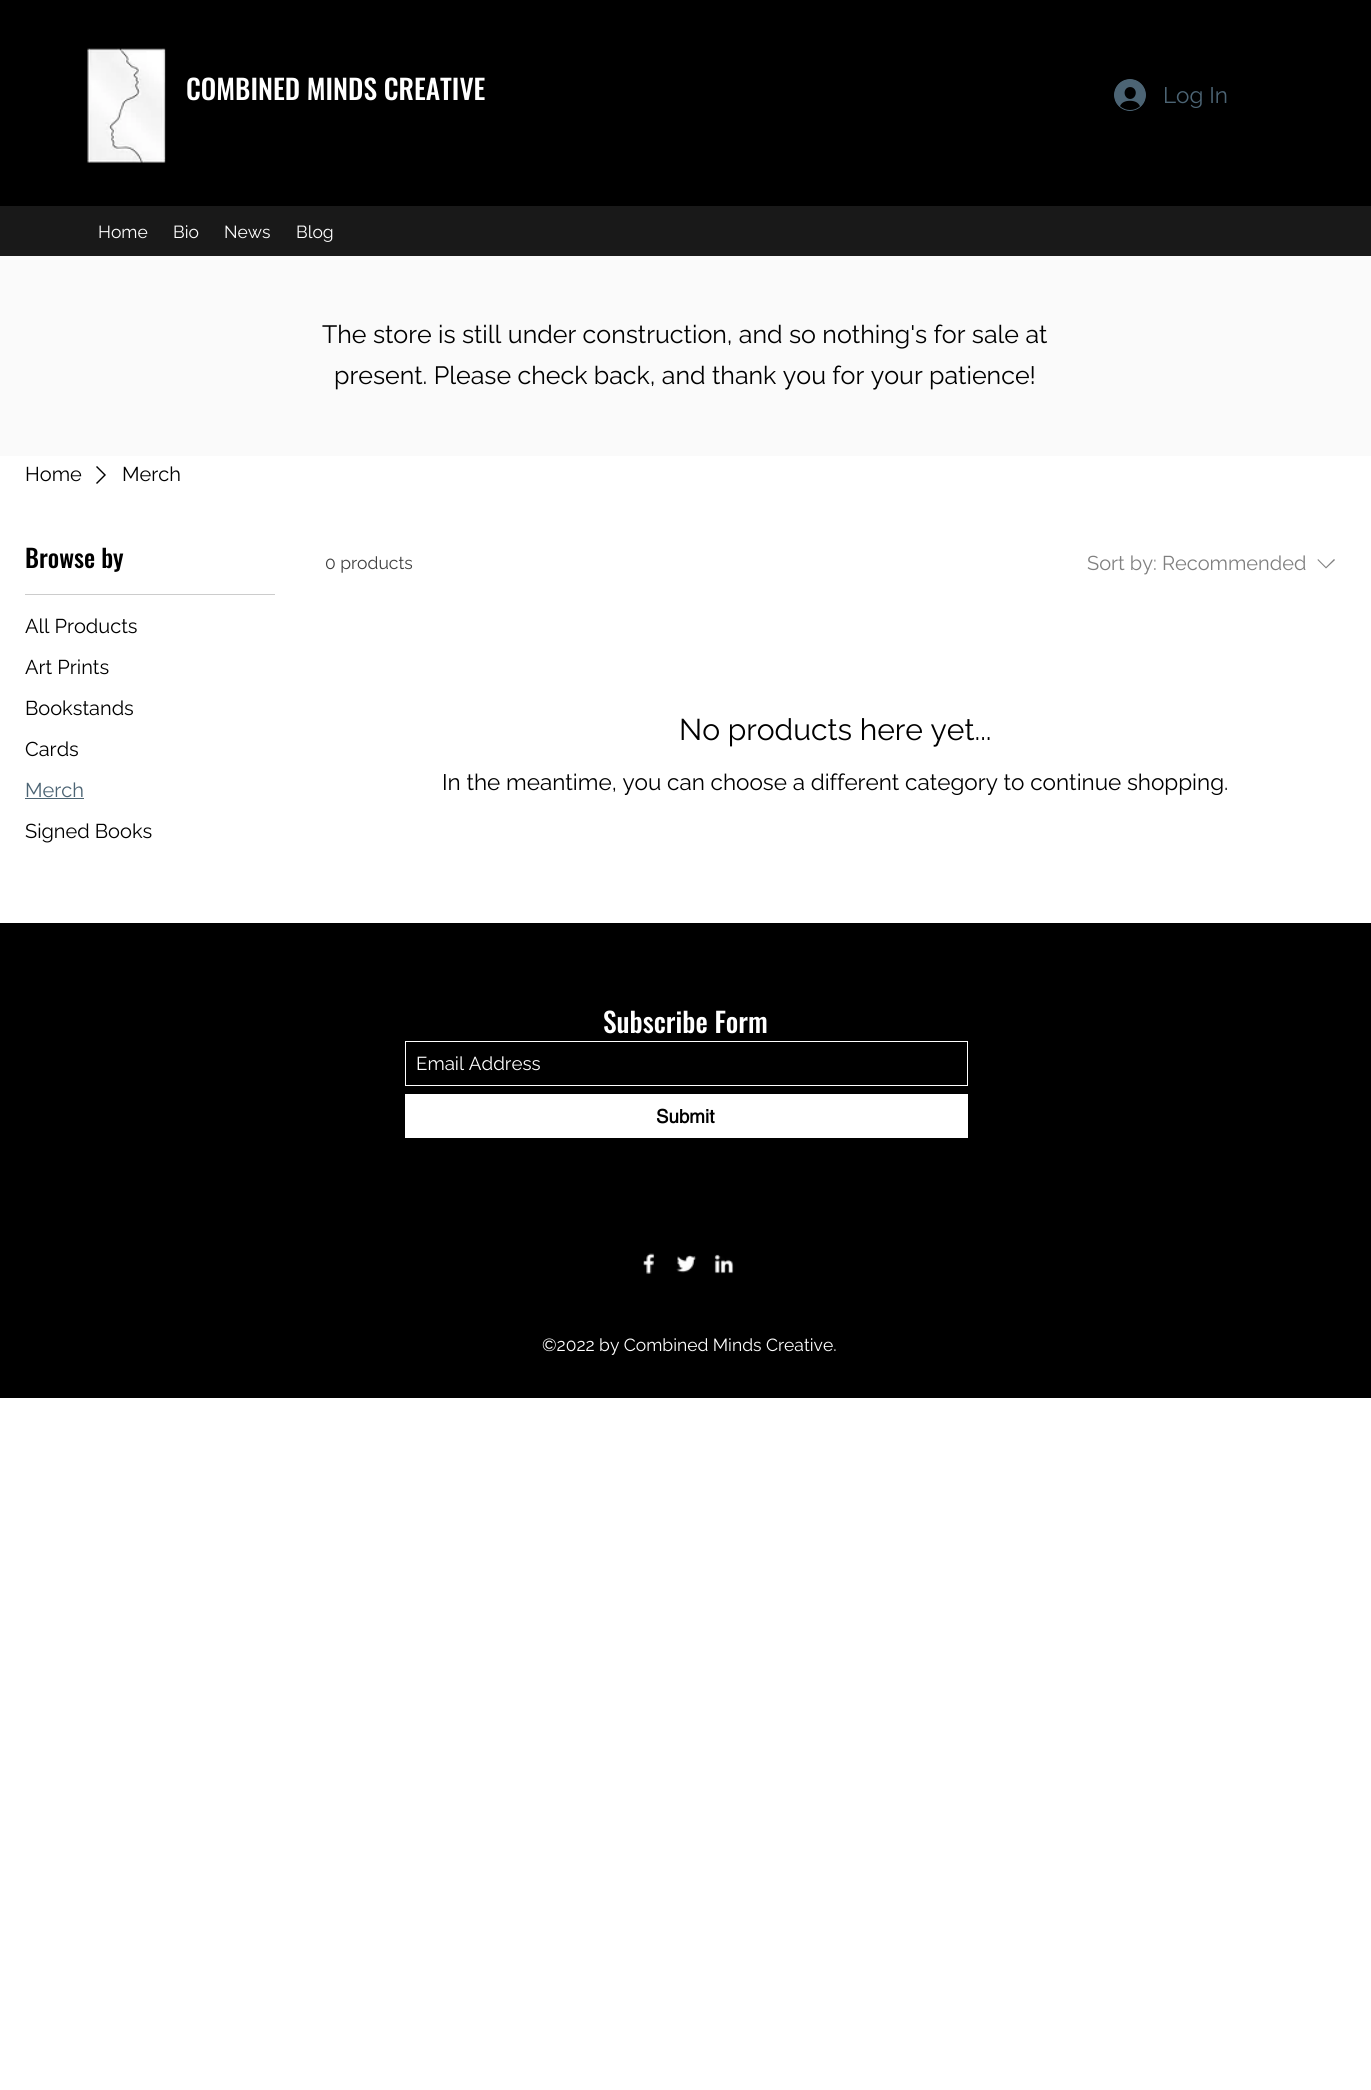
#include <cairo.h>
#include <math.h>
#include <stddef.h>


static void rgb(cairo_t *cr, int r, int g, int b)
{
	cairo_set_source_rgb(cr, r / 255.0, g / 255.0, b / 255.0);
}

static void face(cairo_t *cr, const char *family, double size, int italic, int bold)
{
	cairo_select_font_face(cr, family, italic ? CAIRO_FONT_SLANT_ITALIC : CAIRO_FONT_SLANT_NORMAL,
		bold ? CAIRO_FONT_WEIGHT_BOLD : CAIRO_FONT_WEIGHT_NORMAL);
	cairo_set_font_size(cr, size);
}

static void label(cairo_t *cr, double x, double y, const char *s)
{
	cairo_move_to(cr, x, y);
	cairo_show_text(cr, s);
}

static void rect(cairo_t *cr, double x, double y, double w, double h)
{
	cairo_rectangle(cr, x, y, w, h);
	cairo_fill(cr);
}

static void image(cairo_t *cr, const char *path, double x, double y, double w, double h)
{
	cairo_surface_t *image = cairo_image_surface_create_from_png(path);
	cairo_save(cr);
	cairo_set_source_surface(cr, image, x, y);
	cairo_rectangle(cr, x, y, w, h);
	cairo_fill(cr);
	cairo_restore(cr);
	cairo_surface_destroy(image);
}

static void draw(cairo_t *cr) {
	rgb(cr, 255, 255, 255);
	cairo_paint(cr);
	rgb(cr, 0, 0, 0);
	rect(cr, 0, 0, 1371, 206);
	image(cr, "image0.png", 87, 48, 79, 115);
	face(cr, "Oswald Medium", 27.5, 0, 0);
	rgb(cr, 255, 255, 255);
	label(cr, 186, 100, "COMBINED MINDS CREATIVE");
	image(cr, "image1.png", 1114, 79, 32, 32);
	face(cr, "Raleway", 22.5, 0, 0);
	rgb(cr, 76, 100, 116);
	label(cr, 1163, 103, "Log In");
	rgb(cr, 25, 25, 25);
	rect(cr, 0, 206, 1371, 50);
	face(cr, "Raleway", 17.5, 0, 0);
	rgb(cr, 255, 255, 255);
	label(cr, 98, 238, "Home");
	label(cr, 173, 238, "Bio");
	label(cr, 224, 238, "News");
	label(cr, 296, 238, "Blog");
	rgb(cr, 250, 250, 250);
	rect(cr, 0, 256, 1371, 200);
	face(cr, "Raleway", 25, 0, 0);
	rgb(cr, 0, 0, 0);
	label(cr, 322, 343, "The store is still under construction, and so nothing's for sale at");
	label(cr, 334, 384, "present. Please check back, and thank you for your patience!");
	face(cr, "Raleway", 20, 0, 0);
	label(cr, 25, 481, "Home");
	cairo_set_fill_rule(cr, CAIRO_FILL_RULE_EVEN_ODD);
	cairo_new_path(cr);
	cairo_move_to(cr, 97, 466);
	cairo_line_to(cr, 106, 475);
	cairo_line_to(cr, 97, 484);
	cairo_line_to(cr, 96, 483);
	cairo_line_to(cr, 104, 475);
	cairo_line_to(cr, 96, 467);
	cairo_close_path(cr);
	cairo_fill(cr);
	label(cr, 122, 481, "Merch");
	rgb(cr, 204, 204, 204);
	rect(cr, 25, 594, 250, 1);
	face(cr, "Oswald Medium", 25, 0, 0);
	rgb(cr, 0, 0, 0);
	label(cr, 25, 568, "Browse by");
	face(cr, "Raleway", 20, 0, 0);
	label(cr, 25, 633, "All Products");
	label(cr, 25, 674, "Art Prints");
	label(cr, 25, 715, "Bookstands");
	label(cr, 25, 756, "Cards");
	rgb(cr, 76, 100, 116);
	label(cr, 25, 797, "Merch");
	rect(cr, 25, 798, 59, 1);
	rgb(cr, 0, 0, 0);
	label(cr, 25, 838, "Signed Books");
	face(cr, "Raleway", 17.5, 0, 0);
	rgb(cr, 64, 64, 64);
	label(cr, 325, 569, "0 products");
	face(cr, "Raleway", 20, 0, 0);
	rgb(cr, 128, 128, 128);
	label(cr, 1087, 570, "Sort by: Recommended");
	cairo_new_path(cr);
	cairo_move_to(cr, 1334, 559);
	cairo_line_to(cr, 1335, 560);
	cairo_line_to(cr, 1326, 568.5);
	cairo_line_to(cr, 1317.5, 560);
	cairo_line_to(cr, 1318, 559);
	cairo_line_to(cr, 1326, 567);
	cairo_close_path(cr);
	cairo_fill(cr);
	face(cr, "Raleway", 30, 0, 0);
	rgb(cr, 0, 0, 0);
	label(cr, 679, 740, "No products here yet...");
	face(cr, "Raleway", 22.5, 0, 0);
	label(cr, 442, 790, "In the meantime, you can choose a different category to continue shopping.");
	rect(cr, 0, 923, 1371, 475);
	face(cr, "Oswald Medium", 27.5, 0, 0);
	rgb(cr, 255, 255, 255);
	label(cr, 603, 1033, "Subscribe Form");
	cairo_rectangle(cr, 405.5, 1041.5, 562, 44);
	cairo_set_line_width(cr, 1);
	cairo_stroke(cr);
	face(cr, "Raleway", 18.75, 0, 0);
	label(cr, 416, 1070, "Email Address");
	rect(cr, 405, 1094, 563, 44);
	face(cr, "helvetica", 18.75, 0, 1);
	rgb(cr, 0, 0, 0);
	label(cr, 656, 1123, "Submit");
	image(cr, "image2.png", 643, 1253, 12, 21);
	image(cr, "image3.png", 676, 1255, 21, 18);
	image(cr, "image4.png", 714, 1254, 20, 20);
	face(cr, "Raleway", 17.5, 0, 0);
	rgb(cr, 255, 255, 255);
	label(cr, 542, 1351, "©2022 by Combined Minds Creative.");
}

int main(void) {
	cairo_surface_t *surface = cairo_image_surface_create(CAIRO_FORMAT_RGB24, 1371, 2090);
	cairo_t *cr = cairo_create(surface);
	cairo_font_options_t *options = cairo_font_options_create();
	cairo_font_options_set_hint_metrics(options, CAIRO_HINT_METRICS_OFF);
	cairo_font_options_set_hint_style(options, CAIRO_HINT_STYLE_NONE);
	cairo_set_font_options(cr, options);
	cairo_set_miter_limit(cr, 4);
	draw(cr);
	cairo_surface_write_to_png(surface, "render.png");
	cairo_font_options_destroy(options);
	cairo_destroy(cr);
	cairo_surface_destroy(surface);
	return 0;
}
